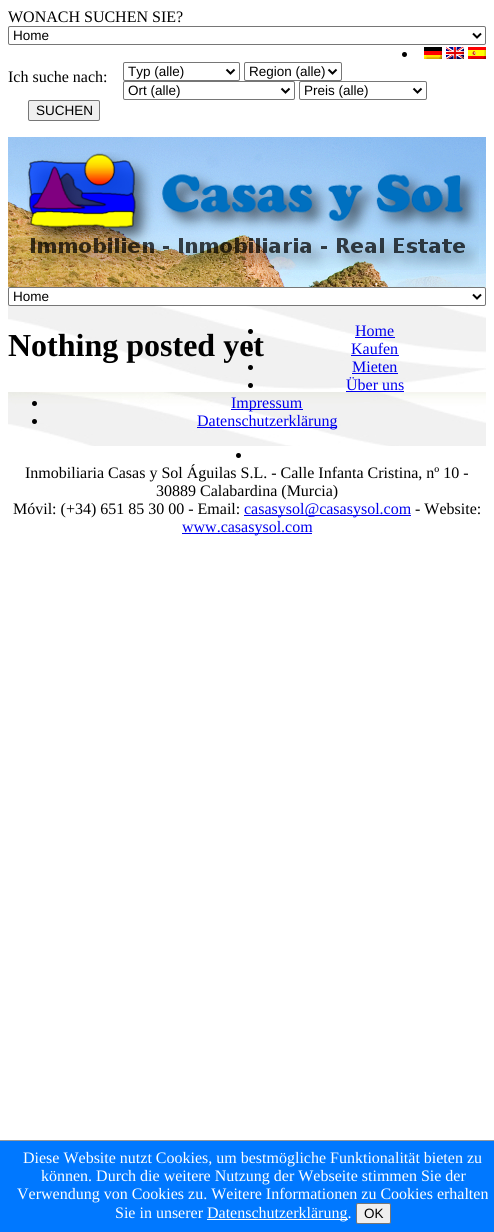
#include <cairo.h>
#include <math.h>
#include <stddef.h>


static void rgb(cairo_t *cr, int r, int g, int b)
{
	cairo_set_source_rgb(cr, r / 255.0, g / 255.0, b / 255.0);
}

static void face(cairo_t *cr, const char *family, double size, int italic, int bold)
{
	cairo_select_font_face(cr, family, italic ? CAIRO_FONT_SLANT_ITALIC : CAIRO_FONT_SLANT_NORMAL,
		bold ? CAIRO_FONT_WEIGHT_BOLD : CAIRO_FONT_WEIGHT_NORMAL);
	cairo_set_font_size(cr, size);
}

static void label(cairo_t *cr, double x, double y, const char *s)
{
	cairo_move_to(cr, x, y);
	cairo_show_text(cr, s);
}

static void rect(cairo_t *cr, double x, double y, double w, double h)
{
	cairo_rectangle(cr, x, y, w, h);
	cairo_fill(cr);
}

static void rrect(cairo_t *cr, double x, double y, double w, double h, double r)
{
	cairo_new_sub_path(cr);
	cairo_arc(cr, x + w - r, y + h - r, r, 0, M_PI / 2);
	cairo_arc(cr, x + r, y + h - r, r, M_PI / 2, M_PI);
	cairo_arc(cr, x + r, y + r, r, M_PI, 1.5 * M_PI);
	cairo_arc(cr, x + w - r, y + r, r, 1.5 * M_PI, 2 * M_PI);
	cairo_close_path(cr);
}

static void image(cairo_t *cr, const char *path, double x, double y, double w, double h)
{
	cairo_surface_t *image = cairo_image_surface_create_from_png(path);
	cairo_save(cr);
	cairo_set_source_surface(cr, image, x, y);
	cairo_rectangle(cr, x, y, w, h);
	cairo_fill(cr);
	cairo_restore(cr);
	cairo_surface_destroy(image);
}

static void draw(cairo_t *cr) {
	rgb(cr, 255, 255, 255);
	cairo_paint(cr);
	face(cr, "Liberation Serif", 16, 0, 0);
	rgb(cr, 0, 0, 0);
	label(cr, 8, 22, "WONACH SUCHEN SIE?");
	rrect(cr, 8.5, 26.5, 477, 18, 1.5);
	rgb(cr, 118, 118, 118);
	cairo_set_line_width(cr, 1);
	cairo_stroke(cr);
	cairo_new_path(cr);
	cairo_move_to(cr, 473, 33.5);
	cairo_line_to(cr, 477, 37.5);
	cairo_line_to(cr, 481, 33.5);
	rgb(cr, 0, 0, 0);
	cairo_set_line_width(cr, 2);
	cairo_stroke(cr);
	face(cr, "Liberation Sans", 13.5, 0, 0);
	label(cr, 13, 40, "Home");
	cairo_new_path(cr);
	cairo_arc(cr, 404.5, 54.5, 2.5, 0, 2 * M_PI);
	cairo_fill(cr);
	image(cr, "image0.png", 424, 47, 18, 12);
	image(cr, "image1.png", 446, 47, 18, 12);
	image(cr, "image2.png", 468, 47, 18, 12);
	rrect(cr, 123.5, 62.5, 116, 18, 1.5);
	rgb(cr, 118, 118, 118);
	cairo_set_line_width(cr, 1);
	cairo_stroke(cr);
	cairo_new_path(cr);
	cairo_move_to(cr, 226.5, 69.5);
	cairo_line_to(cr, 230.5, 73.5);
	cairo_line_to(cr, 234.5, 69.5);
	rgb(cr, 0, 0, 0);
	cairo_set_line_width(cr, 2);
	cairo_stroke(cr);
	label(cr, 128, 76, "Typ (alle)");
	rrect(cr, 244.5, 62.5, 97, 18, 1.5);
	rgb(cr, 118, 118, 118);
	cairo_set_line_width(cr, 1);
	cairo_stroke(cr);
	cairo_new_path(cr);
	cairo_move_to(cr, 328.5, 69.5);
	cairo_line_to(cr, 332.5, 73.5);
	cairo_line_to(cr, 336.5, 69.5);
	rgb(cr, 0, 0, 0);
	cairo_set_line_width(cr, 2);
	cairo_stroke(cr);
	label(cr, 249, 76, "Region (alle)");
	rrect(cr, 123.5, 81.5, 171, 18, 1.5);
	rgb(cr, 118, 118, 118);
	cairo_set_line_width(cr, 1);
	cairo_stroke(cr);
	cairo_new_path(cr);
	cairo_move_to(cr, 281.5, 88.5);
	cairo_line_to(cr, 285.5, 92.5);
	cairo_line_to(cr, 289.5, 88.5);
	rgb(cr, 0, 0, 0);
	cairo_set_line_width(cr, 2);
	cairo_stroke(cr);
	label(cr, 128, 95, "Ort (alle)");
	rrect(cr, 299.5, 81.5, 127, 18, 1.5);
	rgb(cr, 118, 118, 118);
	cairo_set_line_width(cr, 1);
	cairo_stroke(cr);
	cairo_new_path(cr);
	cairo_move_to(cr, 413.5, 88.5);
	cairo_line_to(cr, 417.5, 92.5);
	cairo_line_to(cr, 421.5, 88.5);
	rgb(cr, 0, 0, 0);
	cairo_set_line_width(cr, 2);
	cairo_stroke(cr);
	label(cr, 304, 95, "Preis (alle)");
	rgb(cr, 239, 239, 239);
	rrect(cr, 28.5, 100.5, 71, 20, 1.5);
	cairo_fill_preserve(cr);
	rgb(cr, 118, 118, 118);
	cairo_set_line_width(cr, 1);
	cairo_stroke(cr);
	rgb(cr, 0, 0, 0);
	label(cr, 36, 115, "SUCHEN");
	face(cr, "Liberation Serif", 16, 0, 0);
	label(cr, 8, 82, "Ich suche nach:");
	image(cr, "image3.png", 8, 137, 478, 150);
	image(cr, "image4.png", 27, 152, 452, 118);
	image(cr, "image5.png", 8, 287, 478, 159);
	rgb(cr, 255, 255, 255);
	rrect(cr, 8.5, 287.5, 477, 18, 1.5);
	cairo_fill_preserve(cr);
	rgb(cr, 118, 118, 118);
	cairo_stroke(cr);
	cairo_new_path(cr);
	cairo_move_to(cr, 473, 294.5);
	cairo_line_to(cr, 477, 298.5);
	cairo_line_to(cr, 481, 294.5);
	rgb(cr, 0, 0, 0);
	cairo_set_line_width(cr, 2);
	cairo_stroke(cr);
	face(cr, "Liberation Sans", 13.5, 0, 0);
	label(cr, 13, 301, "Home");
	face(cr, "Liberation Serif", 32, 0, 1);
	label(cr, 8, 356, "Nothing posted yet");
	cairo_new_path(cr);
	cairo_arc(cr, 250.5, 331.5, 2.5, 0, 2 * M_PI);
	cairo_fill(cr);
	face(cr, "Liberation Serif", 16, 0, 0);
	rgb(cr, 0, 0, 238);
	label(cr, 355, 336, "Home");
	rect(cr, 355, 337, 40, 1);
	rgb(cr, 0, 0, 0);
	cairo_new_path(cr);
	cairo_arc(cr, 250.5, 349.5, 2.5, 0, 2 * M_PI);
	cairo_fill(cr);
	rgb(cr, 0, 0, 238);
	label(cr, 351, 354, "Kaufen");
	rect(cr, 351, 355, 48, 1);
	rgb(cr, 0, 0, 0);
	cairo_new_path(cr);
	cairo_arc(cr, 250.5, 367.5, 2.5, 0, 2 * M_PI);
	cairo_fill(cr);
	rgb(cr, 0, 0, 238);
	label(cr, 352, 372, "Mieten");
	rect(cr, 352, 373, 46, 1);
	rgb(cr, 0, 0, 0);
	cairo_new_path(cr);
	cairo_arc(cr, 250.5, 385.5, 2.5, 0, 2 * M_PI);
	cairo_fill(cr);
	rgb(cr, 0, 0, 238);
	label(cr, 346, 390, "Über uns");
	rect(cr, 346, 391, 58, 1);
	rgb(cr, 0, 0, 0);
	cairo_new_path(cr);
	cairo_arc(cr, 34.5, 403.5, 2.5, 0, 2 * M_PI);
	cairo_fill(cr);
	rgb(cr, 0, 0, 238);
	rect(cr, 231, 409, 72, 1);
	label(cr, 231, 408, "Impressum");
	rgb(cr, 0, 0, 0);
	cairo_new_path(cr);
	cairo_arc(cr, 34.5, 421.5, 2.5, 0, 2 * M_PI);
	cairo_fill(cr);
	rgb(cr, 0, 0, 238);
	rect(cr, 197, 427, 140, 1);
	label(cr, 197, 426, "Datenschutzerklärung");
	rgb(cr, 0, 0, 0);
	cairo_new_path(cr);
	cairo_arc(cr, 238.5, 455.5, 2.5, 0, 2 * M_PI);
	cairo_fill(cr);
	label(cr, 25, 478, "Inmobiliaria Casas y Sol Águilas S.L. - Calle Infanta Cristina, nº 10 -");
	label(cr, 156, 496, "30889 Calabardina (Murcia)");
	label(cr, 13, 514, "Móvil: (+34) 651 85 30 00 - Email:");
	rgb(cr, 0, 0, 238);
	rect(cr, 244, 515, 167, 1);
	label(cr, 244, 514, "casasysol@casasysol.com");
	rgb(cr, 0, 0, 0);
	label(cr, 415, 514, "- Website:");
	rgb(cr, 0, 0, 238);
	rect(cr, 182, 533, 130, 1);
	label(cr, 182, 532, "www.casasysol.com");
	rgb(cr, 0, 120, 255);
	rect(cr, 0, 1141, 494, 91);
	rgb(cr, 153, 153, 153);
	rect(cr, 0, 1140, 494, 1);
	rgb(cr, 255, 255, 255);
	label(cr, 23, 1163, "Diese Website nutzt Cookies, um bestmögliche Funktionalität bieten zu");
	label(cr, 41, 1181, "können. Durch die weitere Nutzung der Webseite stimmen Sie der");
	label(cr, 17, 1199, "Verwendung von Cookies zu. Weitere Informationen zu Cookies erhalten");
	label(cr, 115, 1218, "Sie in unserer");
	rect(cr, 207, 1219, 141, 1);
	label(cr, 207, 1218, "Datenschutzerklärung.");
	rgb(cr, 239, 239, 239);
	rrect(cr, 356.5, 1203.5, 34, 20, 1.5);
	cairo_fill_preserve(cr);
	rgb(cr, 118, 118, 118);
	cairo_set_line_width(cr, 1);
	cairo_stroke(cr);
	face(cr, "Liberation Sans", 13.5, 0, 0);
	rgb(cr, 0, 0, 0);
	label(cr, 364, 1218, "OK");
}

int main(void) {
	cairo_surface_t *surface = cairo_image_surface_create(CAIRO_FORMAT_RGB24, 494, 1232);
	cairo_t *cr = cairo_create(surface);
	cairo_font_options_t *options = cairo_font_options_create();
	cairo_font_options_set_hint_metrics(options, CAIRO_HINT_METRICS_OFF);
	cairo_font_options_set_hint_style(options, CAIRO_HINT_STYLE_NONE);
	cairo_set_font_options(cr, options);
	cairo_set_miter_limit(cr, 4);
	draw(cr);
	cairo_surface_write_to_png(surface, "render.png");
	cairo_font_options_destroy(options);
	cairo_destroy(cr);
	cairo_surface_destroy(surface);
	return 0;
}
